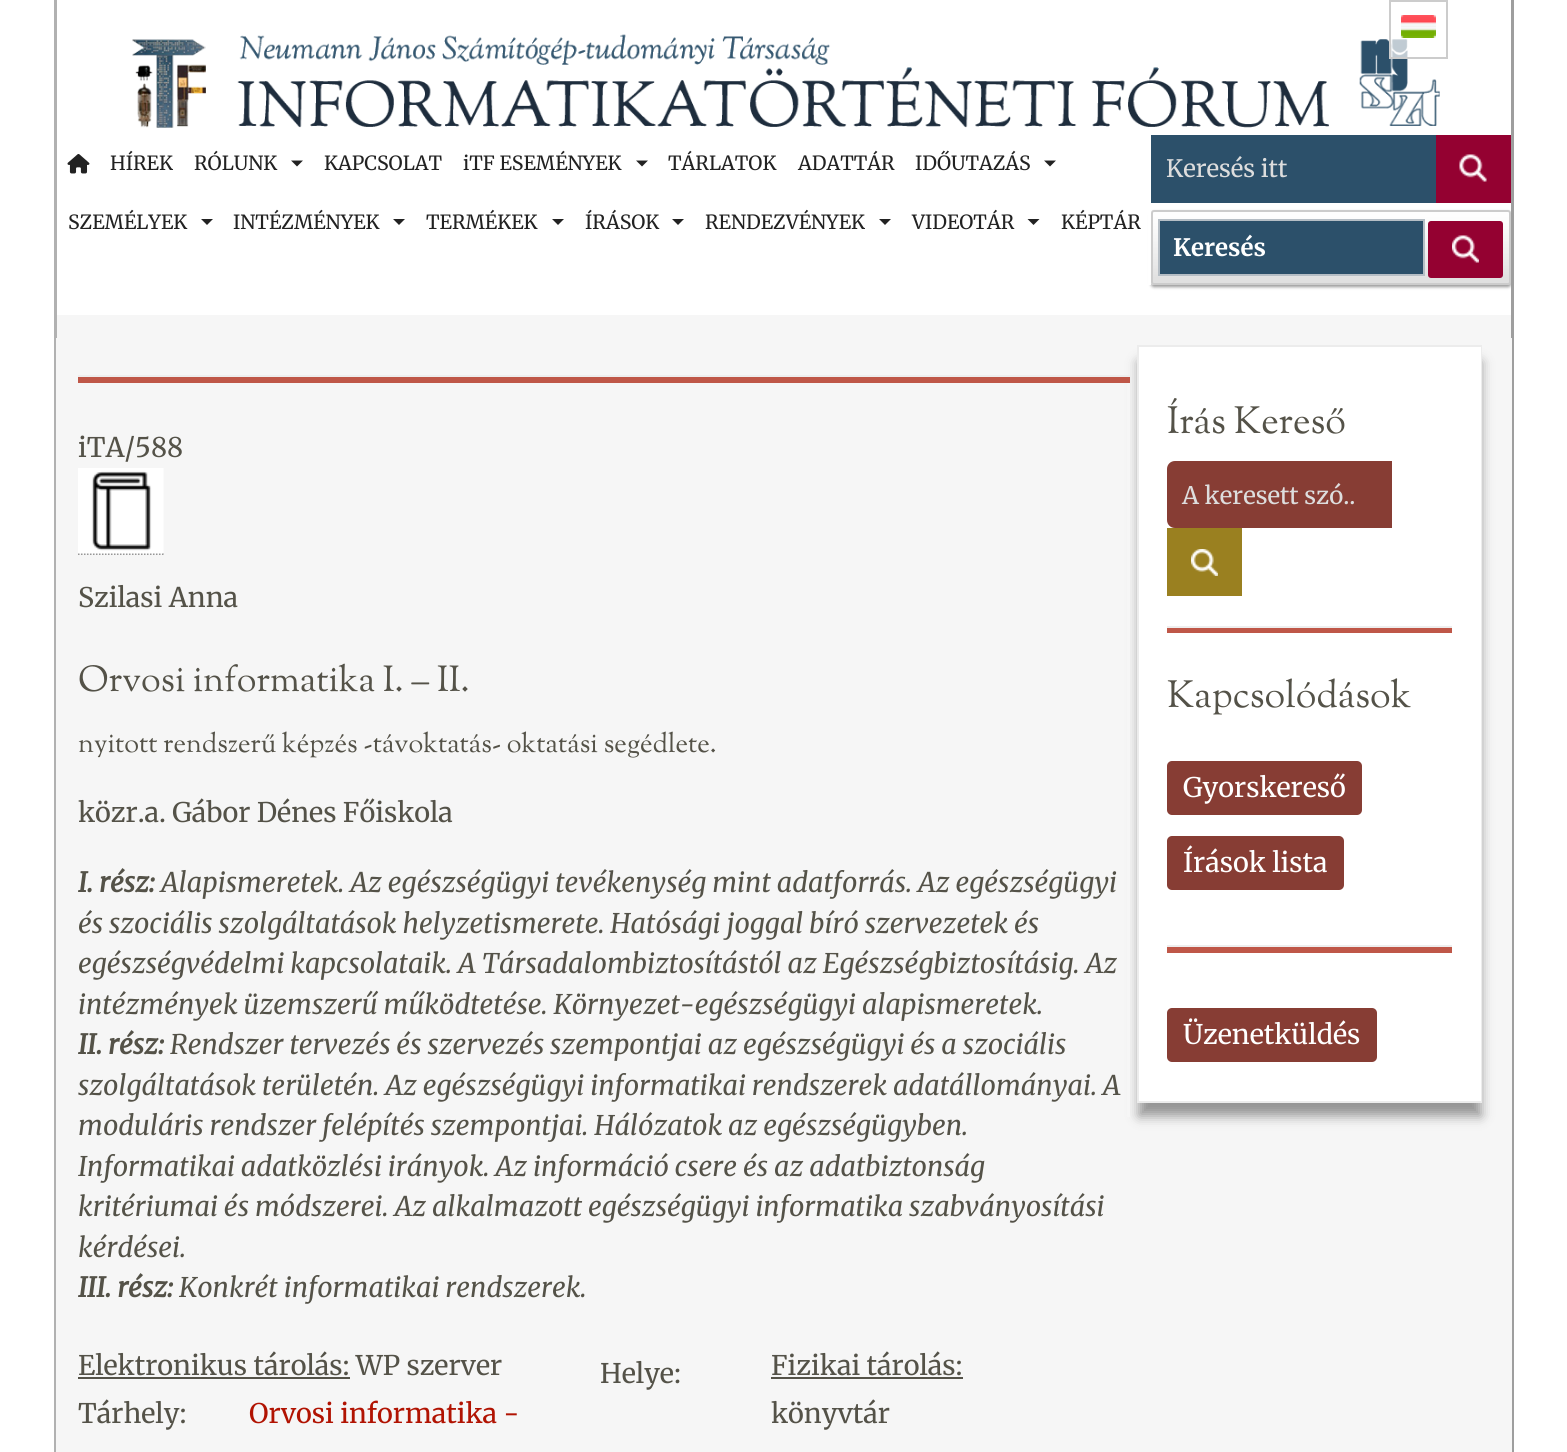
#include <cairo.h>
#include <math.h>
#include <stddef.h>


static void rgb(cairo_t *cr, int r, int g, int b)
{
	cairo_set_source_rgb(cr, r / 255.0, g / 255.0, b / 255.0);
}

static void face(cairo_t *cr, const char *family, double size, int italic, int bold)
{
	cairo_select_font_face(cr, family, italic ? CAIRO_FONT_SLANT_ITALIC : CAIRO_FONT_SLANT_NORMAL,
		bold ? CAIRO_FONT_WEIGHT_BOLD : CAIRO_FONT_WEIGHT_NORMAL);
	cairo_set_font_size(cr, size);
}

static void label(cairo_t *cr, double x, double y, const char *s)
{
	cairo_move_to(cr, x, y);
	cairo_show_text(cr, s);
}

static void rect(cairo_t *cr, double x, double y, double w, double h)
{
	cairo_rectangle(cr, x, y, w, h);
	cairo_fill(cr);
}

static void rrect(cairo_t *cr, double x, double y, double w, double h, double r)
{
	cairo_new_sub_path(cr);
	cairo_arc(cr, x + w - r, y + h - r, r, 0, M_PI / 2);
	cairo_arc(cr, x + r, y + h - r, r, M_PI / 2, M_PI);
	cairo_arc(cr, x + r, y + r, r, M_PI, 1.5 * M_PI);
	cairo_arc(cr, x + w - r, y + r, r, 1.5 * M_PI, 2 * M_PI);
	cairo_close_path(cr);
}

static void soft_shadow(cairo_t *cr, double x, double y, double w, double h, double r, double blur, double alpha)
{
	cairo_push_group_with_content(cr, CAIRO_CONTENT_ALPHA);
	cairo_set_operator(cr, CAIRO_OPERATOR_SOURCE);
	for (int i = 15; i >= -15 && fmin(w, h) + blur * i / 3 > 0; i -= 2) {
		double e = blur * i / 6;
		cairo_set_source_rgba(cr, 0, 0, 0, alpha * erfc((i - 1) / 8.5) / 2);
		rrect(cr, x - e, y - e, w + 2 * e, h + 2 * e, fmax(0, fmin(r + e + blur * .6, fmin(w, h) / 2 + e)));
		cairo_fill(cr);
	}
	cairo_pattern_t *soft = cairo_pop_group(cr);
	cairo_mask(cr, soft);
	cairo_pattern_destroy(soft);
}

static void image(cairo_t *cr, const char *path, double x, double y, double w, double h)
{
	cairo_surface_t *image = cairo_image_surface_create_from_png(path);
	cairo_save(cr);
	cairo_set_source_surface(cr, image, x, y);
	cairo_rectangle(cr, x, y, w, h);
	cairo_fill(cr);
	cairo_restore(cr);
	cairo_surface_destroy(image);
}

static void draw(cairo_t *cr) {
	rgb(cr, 255, 255, 255);
	cairo_paint(cr);
	image(cr, "image1.png", 132, 34, 1308, 94);
	cairo_set_source_rgba(cr, 1, 1, 1, 0.7);
	rect(cr, 1391, 39, 17, 18);
	cairo_rectangle(cr, 1390, 1, 57, 57);
	rgb(cr, 204, 204, 204);
	cairo_stroke(cr);
	image(cr, "image0.png", 1401, 15, 35, 23);
	rgb(cr, 246, 246, 246);
	rect(cr, 57, 315, 1454, 23);
	rgb(cr, 158, 158, 158);
	rect(cr, 1511, 0, 3, 338);
	rgb(cr, 177, 177, 177);
	rect(cr, 54, 0, 3, 338);
	rgb(cr, 153, 153, 153);
	soft_shadow(cr, 1151, 212, 360, 75, 3, 1.5, 1);
	rgb(cr, 255, 255, 255);
	rect(cr, 1148, 211, 3, 74);
	image(cr, "image2.png", 67, 154, 23, 20);
	face(cr, "Merriweather", 19.5, 0, 0);
	rgb(cr, 34, 34, 34);
	label(cr, 110, 170, "HÍREK");
	label(cr, 194, 170, "RÓLUNK");
	cairo_new_path(cr);
	cairo_move_to(cr, 291, 160.5);
	cairo_line_to(cr, 303, 160.5);
	cairo_line_to(cr, 297, 166.5);
	cairo_close_path(cr);
	cairo_fill(cr);
	label(cr, 324, 170, "KAPCSOLAT");
	label(cr, 463, 170, "iTF ESEMÉNYEK");
	cairo_new_path(cr);
	cairo_move_to(cr, 636, 160.5);
	cairo_line_to(cr, 648, 160.5);
	cairo_line_to(cr, 642, 166.5);
	cairo_close_path(cr);
	cairo_fill(cr);
	label(cr, 668, 170, "TÁRLATOK");
	label(cr, 798, 170, "ADATTÁR");
	label(cr, 915, 170, "IDŐUTAZÁS");
	cairo_new_path(cr);
	cairo_move_to(cr, 1044, 160.5);
	cairo_line_to(cr, 1056, 160.5);
	cairo_line_to(cr, 1050, 166.5);
	cairo_close_path(cr);
	cairo_fill(cr);
	label(cr, 68, 229, "SZEMÉLYEK");
	cairo_new_path(cr);
	cairo_move_to(cr, 201, 219);
	cairo_line_to(cr, 213, 219);
	cairo_line_to(cr, 207, 225);
	cairo_close_path(cr);
	cairo_fill(cr);
	label(cr, 233, 229, "INTÉZMÉNYEK");
	cairo_new_path(cr);
	cairo_move_to(cr, 393, 219);
	cairo_line_to(cr, 405, 219);
	cairo_line_to(cr, 399, 225);
	cairo_close_path(cr);
	cairo_fill(cr);
	label(cr, 426, 229, "TERMÉKEK");
	cairo_new_path(cr);
	cairo_move_to(cr, 552, 219);
	cairo_line_to(cr, 564, 219);
	cairo_line_to(cr, 558, 225);
	cairo_close_path(cr);
	cairo_fill(cr);
	label(cr, 585, 229, "ÍRÁSOK");
	cairo_new_path(cr);
	cairo_move_to(cr, 672, 219);
	cairo_line_to(cr, 684, 219);
	cairo_line_to(cr, 678, 225);
	cairo_close_path(cr);
	cairo_fill(cr);
	label(cr, 705, 229, "RENDEZVÉNYEK");
	cairo_new_path(cr);
	cairo_move_to(cr, 879, 219);
	cairo_line_to(cr, 891, 219);
	cairo_line_to(cr, 885, 225);
	cairo_close_path(cr);
	cairo_fill(cr);
	label(cr, 912, 229, "VIDEOTÁR");
	cairo_new_path(cr);
	cairo_move_to(cr, 1027.5, 219);
	cairo_line_to(cr, 1039.5, 219);
	cairo_line_to(cr, 1033.5, 225);
	cairo_close_path(cr);
	cairo_fill(cr);
	label(cr, 1061, 229, "KÉPTÁR");
	rgb(cr, 44, 80, 106);
	rect(cr, 1151, 135, 285, 68);
	face(cr, "Merriweather", 24, 0, 0);
	rgb(cr, 221, 221, 221);
	label(cr, 1166, 177, "Keresés itt");
	rgb(cr, 148, 1, 49);
	rect(cr, 1436, 135, 75, 68);
	image(cr, "image3.png", 1459, 154, 28, 28);
	image(cr, "image4.png", 1151, 211, 360, 74);
	rrect(cr, 1152, 211, 358, 73, 2);
	rgb(cr, 204, 204, 204);
	cairo_stroke(cr);
	rgb(cr, 44, 80, 106);
	cairo_rectangle(cr, 1159, 220, 265, 55);
	cairo_fill_preserve(cr);
	rgb(cr, 182, 190, 197);
	cairo_stroke(cr);
	face(cr, "Merriweather", 24, 0, 1);
	rgb(cr, 255, 255, 255);
	label(cr, 1173, 256, "Keresés");
	rgb(cr, 148, 1, 49);
	rrect(cr, 1428, 221, 75, 57, 3);
	cairo_fill(cr);
	image(cr, "image5.png", 1452, 235, 27, 28);
	rgb(cr, 246, 246, 246);
	rect(cr, 56, 338, 1456, 1114);
	rgb(cr, 158, 158, 158);
	rect(cr, 1512, 338, 2, 1114);
	rgb(cr, 177, 177, 177);
	rect(cr, 54, 338, 2, 1114);
	rgb(cr, 0, 0, 0);
	soft_shadow(cr, 1139, 362, 342, 754, 0, 6, 0.4);
	rgb(cr, 246, 246, 246);
	rect(cr, 1127, 383, 3, 734);
	rgb(cr, 191, 87, 72);
	rect(cr, 78, 377, 1052, 6);
	rgb(cr, 238, 238, 238);
	rect(cr, 78, 375, 1052, 2);
	face(cr, "Merriweather", 27, 0, 0);
	rgb(cr, 84, 82, 72);
	label(cr, 78, 457, "iTA/588");
	cairo_new_path(cr);
	cairo_move_to(cr, 78, 554);
	cairo_line_to(cr, 163.5, 554);
	rgb(cr, 119, 119, 119);
	cairo_set_line_width(cr, 1.5);
	cairo_set_dash(cr, (double[]){1.5, 1.5}, 2, 0);
	cairo_stroke(cr);
	image(cr, "image6.png", 78, 468, 86, 86);
	rgb(cr, 84, 82, 72);
	label(cr, 78, 607, "Szilasi Anna");
	face(cr, "Sorts Mill Goudy", 36, 0, 0);
	label(cr, 78, 691, "Orvosi informatika I. – II.");
	face(cr, "Sorts Mill Goudy", 27, 0, 0);
	label(cr, 78, 752, "nyitott rendszerű képzés -távoktatás- oktatási segédlete.");
	face(cr, "Merriweather", 27, 0, 0);
	label(cr, 78, 822, "közr.a. Gábor Dénes Főiskola");
	face(cr, "Merriweather", 27, 1, 1);
	label(cr, 78, 892, "I. rész:");
	face(cr, "Merriweather", 27, 1, 0);
	label(cr, 161, 892, "Alapismeretek. Az egészségügyi tevékenység mint adatforrás. Az egészségügyi");
	label(cr, 78, 933, "és szociális szolgáltatások helyzetismerete. Hatósági joggal bíró szervezetek és");
	label(cr, 78, 973, "egészségvédelmi kapcsolataik. A Társadalombiztosítástól az Egészségbiztosításig. Az");
	label(cr, 78, 1014, "intézmények üzemszerű működtetése. Környezet-egészségügyi alapismeretek.");
	face(cr, "Merriweather", 27, 1, 1);
	label(cr, 78, 1054, "II. rész:");
	face(cr, "Merriweather", 27, 1, 0);
	label(cr, 170, 1054, "Rendszer tervezés és szervezés szempontjai az egészségügyi és a szociális");
	label(cr, 78, 1095, "szolgáltatások területén. Az egészségügyi informatikai rendszerek adatállományai. A");
	label(cr, 78, 1135, "moduláris rendszer felépítés szempontjai. Hálózatok az egészségügyben.");
	label(cr, 78, 1176, "Informatikai adatközlési irányok. Az információ csere és az adatbiztonság");
	label(cr, 78, 1216, "kritériumai és módszerei. Az alkalmazott egészségügyi informatika szabványosítási");
	label(cr, 78, 1257, "kérdései.");
	face(cr, "Merriweather", 27, 1, 1);
	label(cr, 78, 1297, "III. rész:");
	face(cr, "Merriweather", 27, 1, 0);
	label(cr, 179, 1297, "Konkrét informatikai rendszerek.");
	face(cr, "Merriweather", 27, 0, 0);
	label(cr, 78, 1375, "Elektronikus tárolás: WP szerver");
	rect(cr, 78, 1377, 272, 2);
	label(cr, 78, 1423, "Tárhely:");
	rgb(cr, 177, 19, 2);
	label(cr, 249, 1423, "Orvosi informatika -");
	rgb(cr, 84, 82, 72);
	label(cr, 600, 1383, "Helye:");
	label(cr, 771, 1375, "Fizikai tárolás:");
	rect(cr, 771, 1377, 192, 2);
	label(cr, 771, 1423, "könyvtár");
	cairo_rectangle(cr, 1138, 346, 343, 756);
	rgb(cr, 236, 236, 236);
	cairo_set_line_width(cr, 2);
	cairo_set_dash(cr, NULL, 0, 0);
	cairo_stroke(cr);
	rgb(cr, 255, 255, 255);
	rect(cr, 1139, 347, 342, 754);
	face(cr, "Sorts Mill Goudy", 37.75, 0, 0);
	rgb(cr, 84, 82, 72);
	label(cr, 1167, 433, "Írás Kereső");
	rgb(cr, 135, 61, 52);
	cairo_new_path(cr);
	cairo_move_to(cr, 1175, 461);
	cairo_line_to(cr, 1392, 461);
	cairo_line_to(cr, 1392, 528);
	cairo_line_to(cr, 1175, 528);
	cairo_curve_to(cr, 1170.5, 528, 1167, 524.5, 1167, 520);
	cairo_line_to(cr, 1167, 469);
	cairo_curve_to(cr, 1167, 464.5, 1170.5, 461, 1175, 461);
	cairo_close_path(cr);
	cairo_fill(cr);
	face(cr, "Merriweather", 24, 0, 0);
	rgb(cr, 221, 221, 221);
	label(cr, 1182, 504, "A keresett szó..");
	rgb(cr, 154, 128, 32);
	rect(cr, 1167, 528, 75, 68);
	image(cr, "image7.png", 1191, 549, 27, 27);
	rgb(cr, 191, 87, 72);
	rect(cr, 1167, 628, 285, 5);
	rgb(cr, 238, 238, 238);
	rect(cr, 1167, 626, 285, 2);
	face(cr, "Sorts Mill Goudy", 37.75, 0, 0);
	rgb(cr, 84, 82, 72);
	label(cr, 1167, 707, "Kapcsolódások");
	rgb(cr, 135, 61, 52);
	rrect(cr, 1167, 761, 195, 54, 5);
	cairo_fill(cr);
	face(cr, "Merriweather", 27, 0, 0);
	rgb(cr, 255, 255, 255);
	label(cr, 1183, 797, "Gyorskereső");
	rgb(cr, 135, 61, 52);
	rrect(cr, 1167, 836, 177, 54, 5);
	cairo_fill(cr);
	rgb(cr, 255, 255, 255);
	label(cr, 1183, 872, "Írások lista");
	rgb(cr, 191, 87, 72);
	rect(cr, 1167, 947, 285, 6);
	rgb(cr, 238, 238, 238);
	rect(cr, 1167, 945, 285, 2);
	rgb(cr, 135, 61, 52);
	rrect(cr, 1167, 1008, 210, 54, 5);
	cairo_fill(cr);
	rgb(cr, 255, 255, 255);
	label(cr, 1183, 1044, "Üzenetküldés");
}

int main(void) {
	cairo_surface_t *surface = cairo_image_surface_create(CAIRO_FORMAT_RGB24, 1567, 1452);
	cairo_t *cr = cairo_create(surface);
	cairo_font_options_t *options = cairo_font_options_create();
	cairo_font_options_set_hint_metrics(options, CAIRO_HINT_METRICS_OFF);
	cairo_font_options_set_hint_style(options, CAIRO_HINT_STYLE_NONE);
	cairo_set_font_options(cr, options);
	cairo_set_miter_limit(cr, 4);
	draw(cr);
	cairo_surface_write_to_png(surface, "render.png");
	cairo_font_options_destroy(options);
	cairo_destroy(cr);
	cairo_surface_destroy(surface);
	return 0;
}
